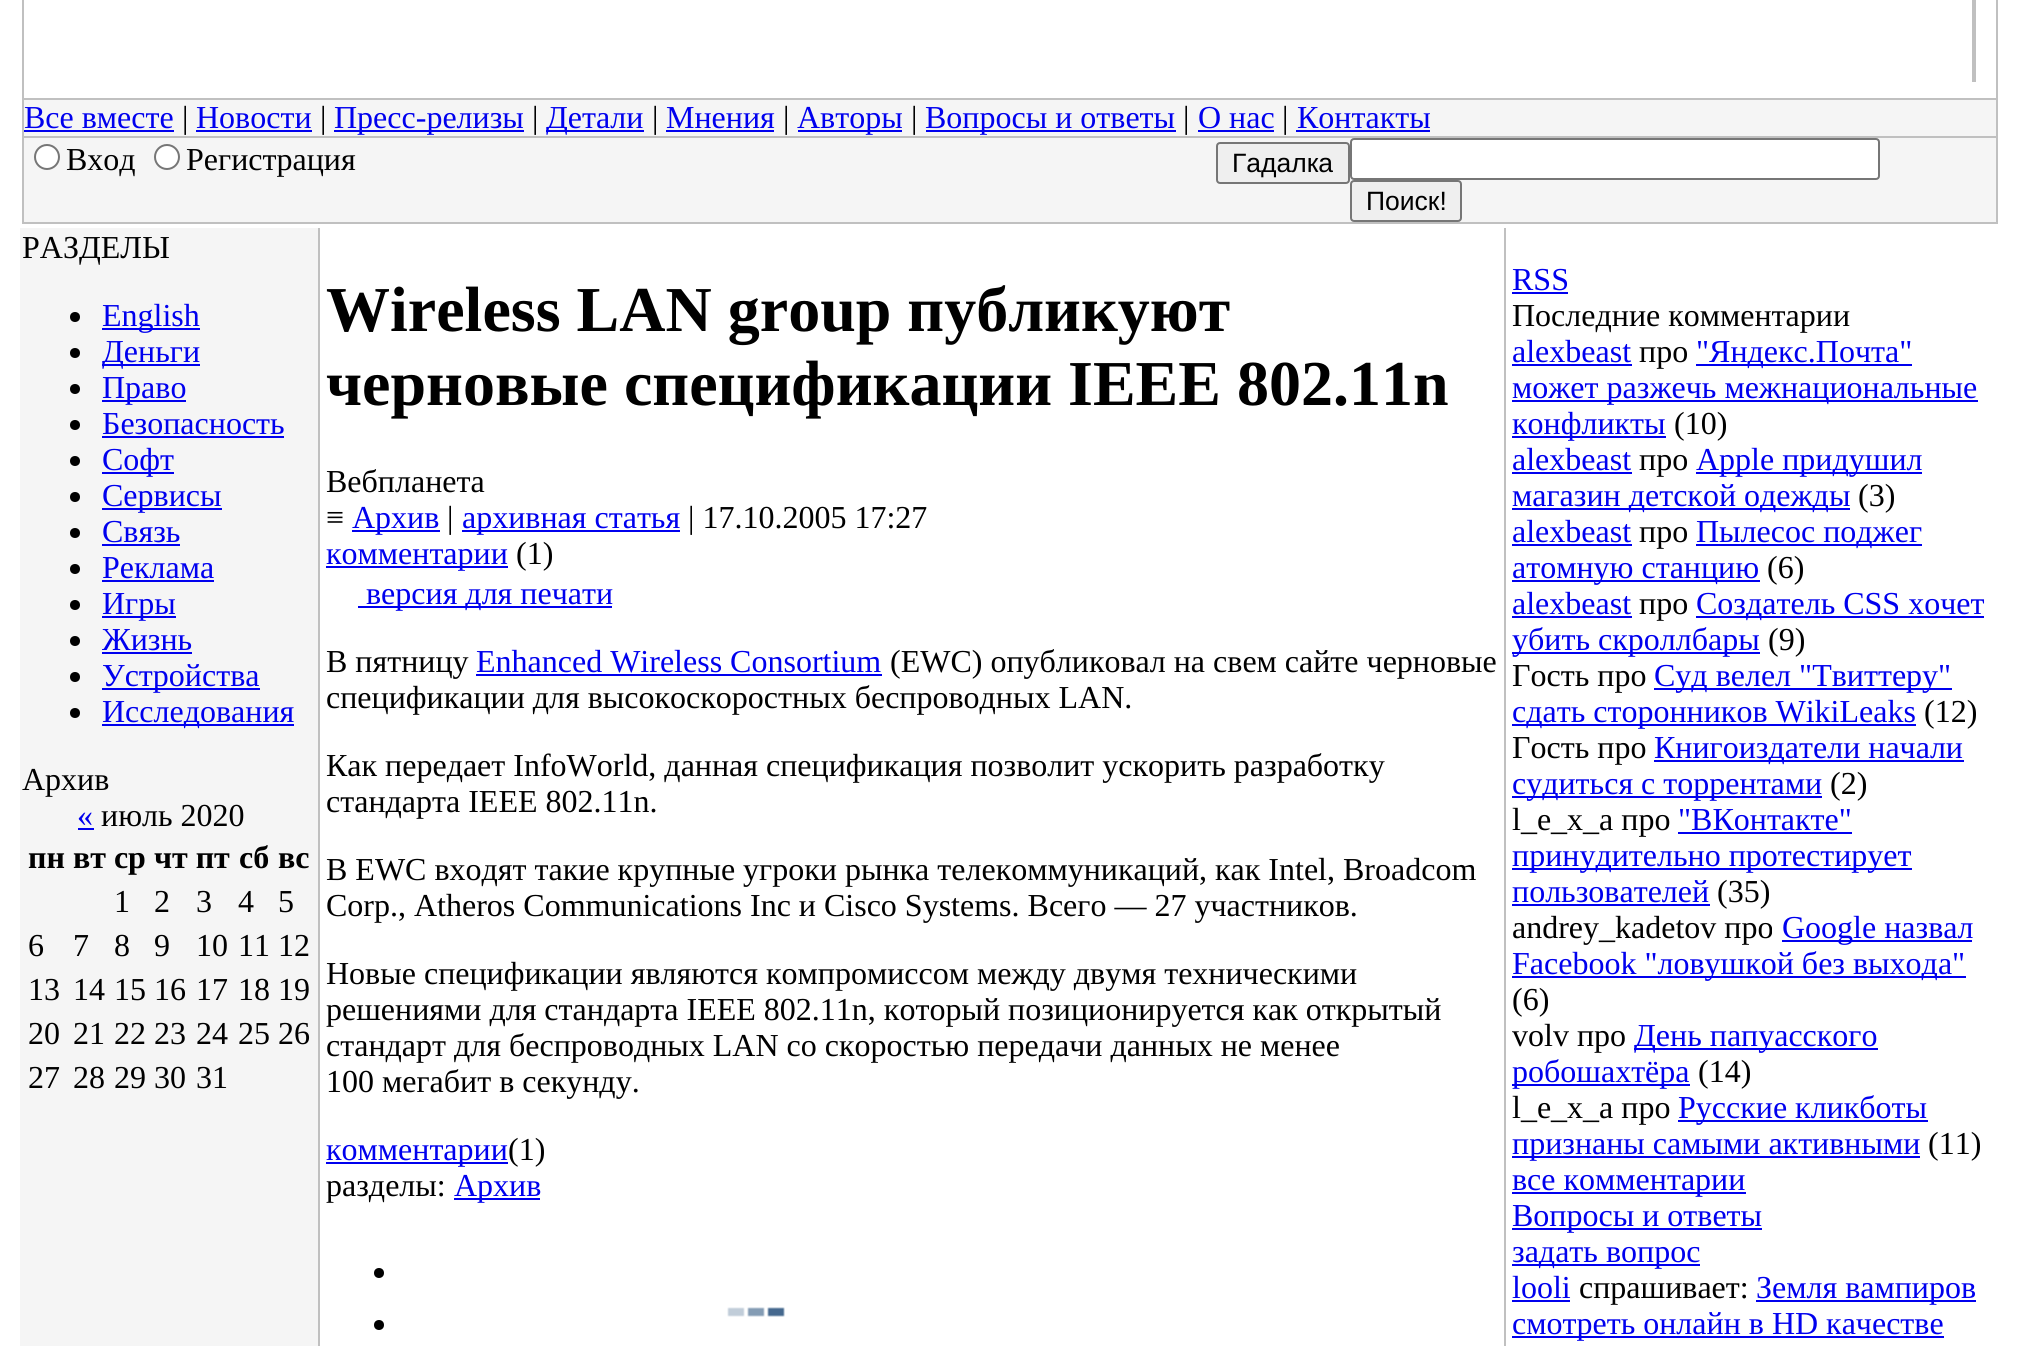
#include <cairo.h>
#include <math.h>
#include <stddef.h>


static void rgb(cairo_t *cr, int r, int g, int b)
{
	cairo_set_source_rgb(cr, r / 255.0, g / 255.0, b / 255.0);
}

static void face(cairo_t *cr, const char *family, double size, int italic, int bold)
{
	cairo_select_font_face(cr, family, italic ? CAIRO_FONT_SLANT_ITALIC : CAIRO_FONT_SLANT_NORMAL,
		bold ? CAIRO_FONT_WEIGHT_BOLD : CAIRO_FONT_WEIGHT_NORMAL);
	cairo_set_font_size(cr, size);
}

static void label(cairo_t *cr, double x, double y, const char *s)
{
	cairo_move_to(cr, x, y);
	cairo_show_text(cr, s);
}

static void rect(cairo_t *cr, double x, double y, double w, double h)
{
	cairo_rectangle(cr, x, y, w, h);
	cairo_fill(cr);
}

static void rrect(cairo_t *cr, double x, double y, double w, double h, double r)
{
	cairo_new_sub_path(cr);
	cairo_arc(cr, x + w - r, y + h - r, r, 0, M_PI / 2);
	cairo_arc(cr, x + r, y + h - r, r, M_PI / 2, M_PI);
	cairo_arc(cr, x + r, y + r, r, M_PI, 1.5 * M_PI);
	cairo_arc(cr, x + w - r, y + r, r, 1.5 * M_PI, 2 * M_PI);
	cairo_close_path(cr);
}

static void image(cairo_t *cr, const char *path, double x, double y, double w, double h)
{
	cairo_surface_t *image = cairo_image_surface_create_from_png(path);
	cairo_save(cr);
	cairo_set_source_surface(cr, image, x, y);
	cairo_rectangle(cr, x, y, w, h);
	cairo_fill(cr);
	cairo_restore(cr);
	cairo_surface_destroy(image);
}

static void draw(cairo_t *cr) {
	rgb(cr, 255, 255, 255);
	cairo_paint(cr);
	cairo_rectangle(cr, 23, -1, 1974, 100);
	rgb(cr, 192, 192, 192);
	cairo_stroke(cr);
	rect(cr, 1972, 0, 4, 82);
	rgb(cr, 245, 245, 245);
	rect(cr, 24, 100, 1972, 36);
	rgb(cr, 192, 192, 192);
	rect(cr, 1996, 100, 2, 124);
	rect(cr, 22, 136, 1976, 2);
	rect(cr, 22, 100, 2, 38);
	face(cr, "Liberation Serif", 32, 0, 0);
	rgb(cr, 0, 0, 238);
	label(cr, 24, 128, "Все вместе");
	rect(cr, 24, 130, 150, 2);
	rgb(cr, 0, 0, 0);
	label(cr, 182, 128, "|");
	rgb(cr, 0, 0, 238);
	label(cr, 196, 128, "Новости");
	rect(cr, 196, 130, 116, 2);
	rgb(cr, 0, 0, 0);
	label(cr, 320, 128, "|");
	rgb(cr, 0, 0, 238);
	rect(cr, 334, 130, 190, 2);
	label(cr, 334, 128, "Пресс-релизы");
	rgb(cr, 0, 0, 0);
	label(cr, 532, 128, "|");
	rgb(cr, 0, 0, 238);
	rect(cr, 546, 130, 98, 2);
	label(cr, 546, 128, "Детали");
	rgb(cr, 0, 0, 0);
	label(cr, 652, 128, "|");
	rgb(cr, 0, 0, 238);
	label(cr, 666, 128, "Мнения");
	rect(cr, 666, 130, 108, 2);
	rgb(cr, 0, 0, 0);
	label(cr, 783, 128, "|");
	rgb(cr, 0, 0, 238);
	rect(cr, 798, 130, 104, 2);
	label(cr, 797, 128, "Авторы");
	rgb(cr, 0, 0, 0);
	label(cr, 911, 128, "|");
	rgb(cr, 0, 0, 238);
	rect(cr, 926, 130, 250, 2);
	label(cr, 925, 128, "Вопросы и ответы");
	rgb(cr, 0, 0, 0);
	label(cr, 1183, 128, "|");
	rgb(cr, 0, 0, 238);
	label(cr, 1198, 128, "О нас");
	rect(cr, 1198, 130, 76, 2);
	rgb(cr, 0, 0, 0);
	label(cr, 1282, 128, "|");
	rgb(cr, 0, 0, 238);
	label(cr, 1297, 128, "Контакты");
	rect(cr, 1296, 130, 134, 2);
	rgb(cr, 245, 245, 245);
	rect(cr, 24, 138, 1972, 84);
	rgb(cr, 192, 192, 192);
	rect(cr, 22, 222, 1976, 2);
	rect(cr, 22, 138, 2, 86);
	rgb(cr, 255, 255, 255);
	cairo_new_path(cr);
	cairo_arc(cr, 47, 157, 12, 0, 2 * M_PI);
	cairo_fill_preserve(cr);
	rgb(cr, 118, 118, 118);
	cairo_stroke(cr);
	rgb(cr, 0, 0, 0);
	label(cr, 66, 170, "Вход");
	rgb(cr, 255, 255, 255);
	cairo_new_path(cr);
	cairo_arc(cr, 167, 157, 12, 0, 2 * M_PI);
	cairo_fill_preserve(cr);
	rgb(cr, 118, 118, 118);
	cairo_stroke(cr);
	rgb(cr, 0, 0, 0);
	label(cr, 186, 170, "Регистрация");
	rgb(cr, 239, 239, 239);
	rrect(cr, 1217, 143, 132, 40, 3);
	cairo_fill_preserve(cr);
	rgb(cr, 118, 118, 118);
	cairo_stroke(cr);
	face(cr, "Liberation Sans", 26.5, 0, 0);
	rgb(cr, 0, 0, 0);
	label(cr, 1232, 172, "Гадалка");
	rgb(cr, 255, 255, 255);
	rrect(cr, 1351, 139, 528, 40, 3);
	cairo_fill_preserve(cr);
	rgb(cr, 118, 118, 118);
	cairo_stroke(cr);
	rgb(cr, 239, 239, 239);
	rrect(cr, 1351, 181, 110, 40, 3);
	cairo_fill_preserve(cr);
	rgb(cr, 118, 118, 118);
	cairo_stroke(cr);
	rgb(cr, 0, 0, 0);
	label(cr, 1366, 210, "Поиск!");
	rgb(cr, 245, 245, 245);
	rect(cr, 20, 228, 298, 1118);
	rgb(cr, 192, 192, 192);
	rect(cr, 318, 228, 2, 1118);
	face(cr, "Liberation Serif", 32, 0, 0);
	rgb(cr, 0, 0, 0);
	label(cr, 22, 258, "РАЗДЕЛЫ");
	cairo_new_path(cr);
	cairo_arc(cr, 75, 317, 5, 0, 2 * M_PI);
	cairo_fill(cr);
	rgb(cr, 0, 0, 238);
	rect(cr, 102, 328, 98, 2);
	label(cr, 102, 326, "English");
	rgb(cr, 0, 0, 0);
	cairo_new_path(cr);
	cairo_arc(cr, 75, 353, 5, 0, 2 * M_PI);
	cairo_fill(cr);
	rgb(cr, 0, 0, 238);
	rect(cr, 102, 364, 98, 2);
	label(cr, 102, 362, "Деньги");
	rgb(cr, 0, 0, 0);
	cairo_new_path(cr);
	cairo_arc(cr, 75, 389, 5, 0, 2 * M_PI);
	cairo_fill(cr);
	rgb(cr, 0, 0, 238);
	rect(cr, 102, 400, 84, 2);
	label(cr, 102, 398, "Право");
	rgb(cr, 0, 0, 0);
	cairo_new_path(cr);
	cairo_arc(cr, 75, 425, 5, 0, 2 * M_PI);
	cairo_fill(cr);
	rgb(cr, 0, 0, 238);
	label(cr, 102, 434, "Безопасность");
	rect(cr, 102, 436, 182, 2);
	rgb(cr, 0, 0, 0);
	cairo_new_path(cr);
	cairo_arc(cr, 75, 461, 5, 0, 2 * M_PI);
	cairo_fill(cr);
	rgb(cr, 0, 0, 238);
	rect(cr, 102, 472, 72, 2);
	label(cr, 102, 470, "Софт");
	rgb(cr, 0, 0, 0);
	cairo_new_path(cr);
	cairo_arc(cr, 75, 497, 5, 0, 2 * M_PI);
	cairo_fill(cr);
	rgb(cr, 0, 0, 238);
	rect(cr, 102, 508, 120, 2);
	label(cr, 102, 506, "Сервисы");
	rgb(cr, 0, 0, 0);
	cairo_new_path(cr);
	cairo_arc(cr, 75, 533, 5, 0, 2 * M_PI);
	cairo_fill(cr);
	rgb(cr, 0, 0, 238);
	label(cr, 102, 542, "Связь");
	rect(cr, 102, 544, 78, 2);
	rgb(cr, 0, 0, 0);
	cairo_new_path(cr);
	cairo_arc(cr, 75, 569, 5, 0, 2 * M_PI);
	cairo_fill(cr);
	rgb(cr, 0, 0, 238);
	label(cr, 102, 578, "Реклама");
	rect(cr, 102, 580, 112, 2);
	rgb(cr, 0, 0, 0);
	cairo_new_path(cr);
	cairo_arc(cr, 75, 605, 5, 0, 2 * M_PI);
	cairo_fill(cr);
	rgb(cr, 0, 0, 238);
	rect(cr, 102, 616, 74, 2);
	label(cr, 102, 614, "Игры");
	rgb(cr, 0, 0, 0);
	cairo_new_path(cr);
	cairo_arc(cr, 75, 641, 5, 0, 2 * M_PI);
	cairo_fill(cr);
	rgb(cr, 0, 0, 238);
	label(cr, 102, 650, "Жизнь");
	rect(cr, 102, 652, 90, 2);
	rgb(cr, 0, 0, 0);
	cairo_new_path(cr);
	cairo_arc(cr, 75, 677, 5, 0, 2 * M_PI);
	cairo_fill(cr);
	rgb(cr, 0, 0, 238);
	rect(cr, 102, 688, 158, 2);
	label(cr, 102, 686, "Устройства");
	rgb(cr, 0, 0, 0);
	cairo_new_path(cr);
	cairo_arc(cr, 75, 713, 5, 0, 2 * M_PI);
	cairo_fill(cr);
	rgb(cr, 0, 0, 238);
	rect(cr, 102, 724, 192, 2);
	label(cr, 102, 722, "Исследования");
	rgb(cr, 0, 0, 0);
	label(cr, 22, 790, "Архив");
	rgb(cr, 0, 0, 238);
	label(cr, 77, 826, "«");
	rect(cr, 78, 828, 16, 2);
	rgb(cr, 0, 0, 0);
	label(cr, 101, 826, "июль 2020");
	face(cr, "Liberation Serif", 32, 0, 1);
	label(cr, 28, 868, "пн вт ср чт пт");
	label(cr, 239, 868, "сб");
	label(cr, 278, 868, "вс");
	face(cr, "Liberation Serif", 32, 0, 0);
	label(cr, 114, 912, "1");
	label(cr, 154, 912, "2");
	label(cr, 196, 912, "3");
	label(cr, 238, 912, "4");
	label(cr, 278, 912, "5");
	label(cr, 28, 956, "6");
	label(cr, 73, 956, "7");
	label(cr, 114, 956, "8");
	label(cr, 154, 956, "9");
	label(cr, 196, 956, "10");
	label(cr, 238, 956, "11 12");
	label(cr, 28, 1000, "13");
	label(cr, 73, 1000, "14");
	label(cr, 114, 1000, "15 16");
	label(cr, 196, 1000, "17");
	label(cr, 238, 1000, "18 19");
	label(cr, 28, 1044, "20");
	label(cr, 73, 1044, "21");
	label(cr, 114, 1044, "22 23");
	label(cr, 196, 1044, "24");
	label(cr, 238, 1044, "25 26");
	label(cr, 28, 1088, "27");
	label(cr, 73, 1088, "28");
	label(cr, 114, 1088, "29 30");
	label(cr, 196, 1088, "31");
	rgb(cr, 192, 192, 192);
	rect(cr, 1504, 228, 2, 1118);
	face(cr, "Liberation Serif", 64, 0, 1);
	rgb(cr, 0, 0, 0);
	label(cr, 326, 331, "Wireless LAN group публикуют");
	label(cr, 326, 405, "черновые спецификации IEEE 802.11n");
	face(cr, "Liberation Serif", 32, 0, 0);
	label(cr, 326, 492, "Вебпланета");
	label(cr, 326, 528, "≡");
	rgb(cr, 0, 0, 238);
	rect(cr, 352, 530, 88, 2);
	label(cr, 352, 528, "Архив");
	rgb(cr, 0, 0, 0);
	label(cr, 447, 528, "|");
	rgb(cr, 0, 0, 238);
	rect(cr, 462, 530, 218, 2);
	label(cr, 462, 528, "архивная статья");
	rgb(cr, 0, 0, 0);
	label(cr, 688, 528, "| 17.10.2005 17:27");
	rgb(cr, 0, 0, 238);
	rect(cr, 326, 566, 182, 2);
	label(cr, 326, 564, "комментарии");
	rgb(cr, 0, 0, 0);
	label(cr, 516, 564, "(1)");
	rgb(cr, 0, 0, 238);
	rect(cr, 358, 606, 254, 2);
	label(cr, 366, 604, "версия для печати");
	rgb(cr, 0, 0, 0);
	label(cr, 326, 672, "В пятницу");
	rgb(cr, 0, 0, 238);
	label(cr, 476, 672, "Enhanced Wireless Consortium");
	rect(cr, 476, 674, 406, 2);
	rgb(cr, 0, 0, 0);
	label(cr, 890, 672, "(EWC) опубликовал на свем сайте черновые");
	label(cr, 326, 708, "спецификации для высокоскоростных беспроводных LAN.");
	label(cr, 326, 776, "Как передает InfoWorld, данная спецификация позволит ускорить разработку");
	label(cr, 326, 812, "стандарта IEEE 802.11n.");
	label(cr, 326, 880, "В EWC входят такие крупные угроки рынка телекоммуникаций, как Intel, Broadcom");
	label(cr, 326, 916, "Corp., Atheros Communications Inc и Cisco Systems. Всего — 27 участников.");
	label(cr, 326, 984, "Новые спецификации являются компромиссом между двумя техническими");
	label(cr, 326, 1020, "решениями для стандарта IEEE 802.11n, который позиционируется как открытый");
	label(cr, 326, 1056, "стандарт для беспроводных LAN со скоростью передачи данных не менее");
	label(cr, 326, 1092, "100 мегабит в секунду.");
	rgb(cr, 0, 0, 238);
	rect(cr, 326, 1162, 182, 2);
	label(cr, 326, 1160, "комментарии");
	rgb(cr, 0, 0, 0);
	label(cr, 508, 1160, "(1)");
	label(cr, 326, 1196, "разделы:");
	rgb(cr, 0, 0, 238);
	rect(cr, 454, 1198, 86, 2);
	label(cr, 454, 1196, "Архив");
	rgb(cr, 0, 0, 0);
	cairo_new_path(cr);
	cairo_arc(cr, 379, 1273, 5, 0, 2 * M_PI);
	cairo_fill(cr);
	image(cr, "image0.png", 727, 1307, 58, 10);
	cairo_arc(cr, 379, 1325, 5, 0, 2 * M_PI);
	cairo_fill(cr);
	rgb(cr, 0, 0, 238);
	label(cr, 1512, 290, "RSS");
	rect(cr, 1512, 292, 56, 2);
	rgb(cr, 0, 0, 0);
	label(cr, 1512, 326, "Последние комментарии");
	rgb(cr, 0, 0, 238);
	label(cr, 1512, 362, "alexbeast");
	rect(cr, 1512, 364, 120, 2);
	rgb(cr, 0, 0, 0);
	label(cr, 1639, 362, "про");
	rgb(cr, 0, 0, 238);
	rect(cr, 1696, 364, 216, 2);
	label(cr, 1696, 362, "\"Яндекс.Почта\"");
	rect(cr, 1512, 400, 466, 2);
	label(cr, 1512, 398, "может разжечь межнациональные");
	rect(cr, 1512, 436, 154, 2);
	label(cr, 1512, 434, "конфликты");
	rgb(cr, 0, 0, 0);
	label(cr, 1674, 434, "(10)");
	rgb(cr, 0, 0, 238);
	label(cr, 1512, 470, "alexbeast");
	rect(cr, 1512, 472, 120, 2);
	rgb(cr, 0, 0, 0);
	label(cr, 1639, 470, "про");
	rgb(cr, 0, 0, 238);
	rect(cr, 1696, 472, 226, 2);
	label(cr, 1696, 470, "Apple придушил");
	rect(cr, 1512, 508, 338, 2);
	label(cr, 1512, 506, "магазин детской одежды");
	rgb(cr, 0, 0, 0);
	label(cr, 1858, 506, "(3)");
	rgb(cr, 0, 0, 238);
	label(cr, 1512, 542, "alexbeast");
	rect(cr, 1512, 544, 120, 2);
	rgb(cr, 0, 0, 0);
	label(cr, 1639, 542, "про");
	rgb(cr, 0, 0, 238);
	rect(cr, 1696, 544, 226, 2);
	label(cr, 1696, 542, "Пылесос поджег");
	rect(cr, 1512, 580, 248, 2);
	label(cr, 1512, 578, "атомную станцию");
	rgb(cr, 0, 0, 0);
	label(cr, 1767, 578, "(6)");
	rgb(cr, 0, 0, 238);
	label(cr, 1512, 614, "alexbeast");
	rect(cr, 1512, 616, 120, 2);
	rgb(cr, 0, 0, 0);
	label(cr, 1639, 614, "про");
	rgb(cr, 0, 0, 238);
	rect(cr, 1696, 616, 288, 2);
	label(cr, 1696, 614, "Создатель CSS хочет");
	rect(cr, 1512, 652, 248, 2);
	label(cr, 1512, 650, "убить скроллбары");
	rgb(cr, 0, 0, 0);
	label(cr, 1768, 650, "(9)");
	label(cr, 1512, 686, "Гость про");
	rgb(cr, 0, 0, 238);
	rect(cr, 1654, 688, 298, 2);
	label(cr, 1654, 686, "Суд велел \"Твиттеру\"");
	rect(cr, 1512, 724, 404, 2);
	label(cr, 1512, 722, "сдать сторонников WikiLeaks");
	rgb(cr, 0, 0, 0);
	label(cr, 1924, 722, "(12)");
	label(cr, 1512, 758, "Гость про");
	rgb(cr, 0, 0, 238);
	rect(cr, 1654, 760, 310, 2);
	label(cr, 1654, 758, "Книгоиздатели начали");
	rect(cr, 1512, 796, 310, 2);
	label(cr, 1512, 794, "судиться с торрентами");
	rgb(cr, 0, 0, 0);
	label(cr, 1830, 794, "(2)");
	label(cr, 1512, 830, "l_e_x_a про");
	rgb(cr, 0, 0, 238);
	label(cr, 1678, 830, "\"ВКонтакте\"");
	rect(cr, 1678, 832, 174, 2);
	rect(cr, 1512, 868, 400, 2);
	label(cr, 1512, 866, "принудительно протестирует");
	label(cr, 1512, 902, "пользователей");
	rect(cr, 1512, 904, 198, 2);
	rgb(cr, 0, 0, 0);
	label(cr, 1717, 902, "(35)");
	label(cr, 1512, 938, "andrey_kadetov про");
	rgb(cr, 0, 0, 238);
	rect(cr, 1782, 940, 190, 2);
	label(cr, 1782, 938, "Google назвал");
	rect(cr, 1512, 976, 454, 2);
	label(cr, 1512, 974, "Facebook \"ловушкой без выхода\"");
	rgb(cr, 0, 0, 0);
	label(cr, 1512, 1010, "(6)");
	label(cr, 1512, 1046, "volv про");
	rgb(cr, 0, 0, 238);
	rect(cr, 1634, 1048, 244, 2);
	label(cr, 1634, 1046, "День папуасского");
	rect(cr, 1512, 1084, 178, 2);
	label(cr, 1512, 1082, "робошахтёра");
	rgb(cr, 0, 0, 0);
	label(cr, 1698, 1082, "(14)");
	label(cr, 1512, 1118, "l_e_x_a про");
	rgb(cr, 0, 0, 238);
	rect(cr, 1678, 1120, 250, 2);
	label(cr, 1678, 1118, "Русские кликботы");
	rect(cr, 1512, 1156, 408, 2);
	label(cr, 1512, 1154, "признаны самыми активными");
	rgb(cr, 0, 0, 0);
	label(cr, 1928, 1154, "(11)");
	rgb(cr, 0, 0, 238);
	rect(cr, 1512, 1192, 234, 2);
	label(cr, 1512, 1190, "все комментарии");
	rect(cr, 1512, 1228, 250, 2);
	label(cr, 1512, 1226, "Вопросы и ответы");
	rect(cr, 1512, 1264, 188, 2);
	label(cr, 1512, 1262, "задать вопрос");
	label(cr, 1512, 1298, "looli");
	rect(cr, 1512, 1300, 58, 2);
	rgb(cr, 0, 0, 0);
	label(cr, 1579, 1298, "спрашивает:");
	rgb(cr, 0, 0, 238);
	rect(cr, 1756, 1300, 220, 2);
	label(cr, 1756, 1298, "Земля вампиров");
	rect(cr, 1512, 1336, 432, 2);
	label(cr, 1512, 1334, "смотреть онлайн в HD качестве");
}

int main(void) {
	cairo_surface_t *surface = cairo_image_surface_create(CAIRO_FORMAT_RGB24, 2019, 1346);
	cairo_t *cr = cairo_create(surface);
	cairo_font_options_t *options = cairo_font_options_create();
	cairo_font_options_set_hint_metrics(options, CAIRO_HINT_METRICS_OFF);
	cairo_font_options_set_hint_style(options, CAIRO_HINT_STYLE_NONE);
	cairo_set_font_options(cr, options);
	cairo_set_miter_limit(cr, 4);
	draw(cr);
	cairo_surface_write_to_png(surface, "render.png");
	cairo_font_options_destroy(options);
	cairo_destroy(cr);
	cairo_surface_destroy(surface);
	return 0;
}
